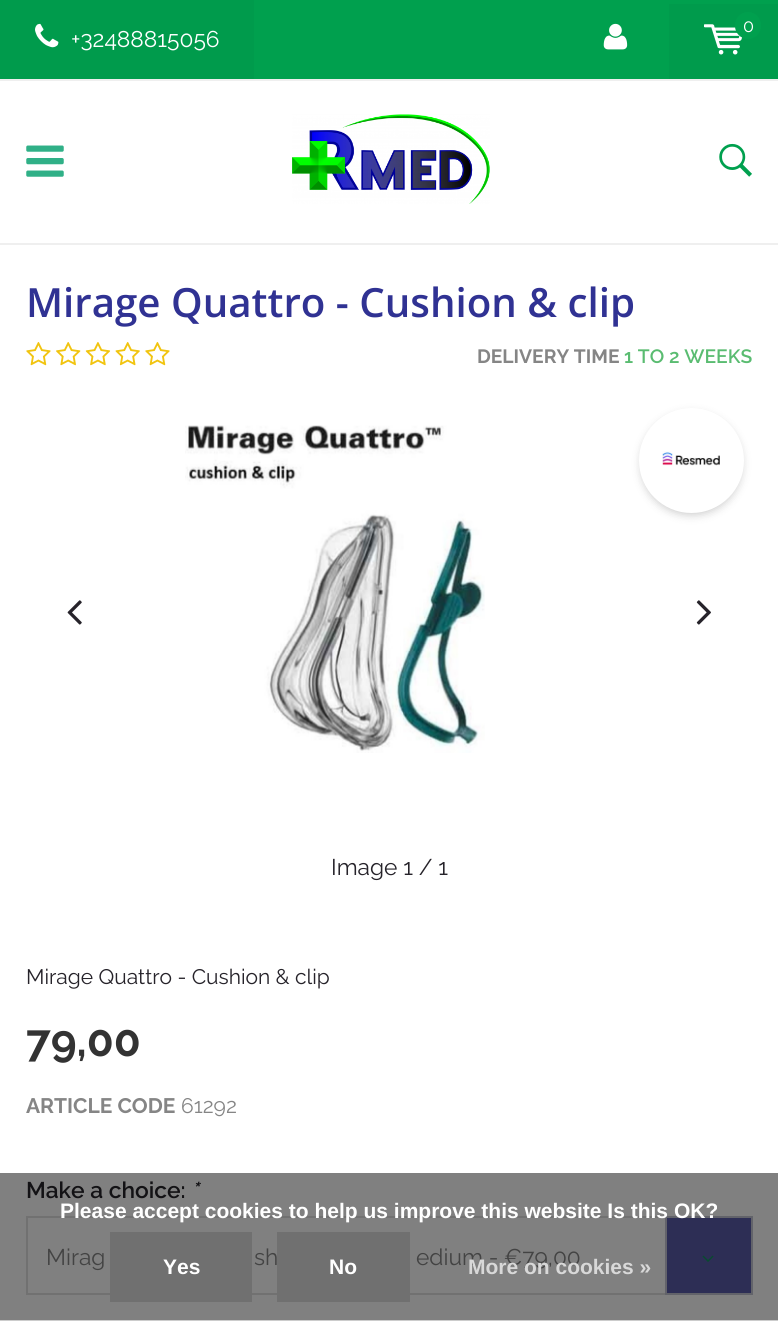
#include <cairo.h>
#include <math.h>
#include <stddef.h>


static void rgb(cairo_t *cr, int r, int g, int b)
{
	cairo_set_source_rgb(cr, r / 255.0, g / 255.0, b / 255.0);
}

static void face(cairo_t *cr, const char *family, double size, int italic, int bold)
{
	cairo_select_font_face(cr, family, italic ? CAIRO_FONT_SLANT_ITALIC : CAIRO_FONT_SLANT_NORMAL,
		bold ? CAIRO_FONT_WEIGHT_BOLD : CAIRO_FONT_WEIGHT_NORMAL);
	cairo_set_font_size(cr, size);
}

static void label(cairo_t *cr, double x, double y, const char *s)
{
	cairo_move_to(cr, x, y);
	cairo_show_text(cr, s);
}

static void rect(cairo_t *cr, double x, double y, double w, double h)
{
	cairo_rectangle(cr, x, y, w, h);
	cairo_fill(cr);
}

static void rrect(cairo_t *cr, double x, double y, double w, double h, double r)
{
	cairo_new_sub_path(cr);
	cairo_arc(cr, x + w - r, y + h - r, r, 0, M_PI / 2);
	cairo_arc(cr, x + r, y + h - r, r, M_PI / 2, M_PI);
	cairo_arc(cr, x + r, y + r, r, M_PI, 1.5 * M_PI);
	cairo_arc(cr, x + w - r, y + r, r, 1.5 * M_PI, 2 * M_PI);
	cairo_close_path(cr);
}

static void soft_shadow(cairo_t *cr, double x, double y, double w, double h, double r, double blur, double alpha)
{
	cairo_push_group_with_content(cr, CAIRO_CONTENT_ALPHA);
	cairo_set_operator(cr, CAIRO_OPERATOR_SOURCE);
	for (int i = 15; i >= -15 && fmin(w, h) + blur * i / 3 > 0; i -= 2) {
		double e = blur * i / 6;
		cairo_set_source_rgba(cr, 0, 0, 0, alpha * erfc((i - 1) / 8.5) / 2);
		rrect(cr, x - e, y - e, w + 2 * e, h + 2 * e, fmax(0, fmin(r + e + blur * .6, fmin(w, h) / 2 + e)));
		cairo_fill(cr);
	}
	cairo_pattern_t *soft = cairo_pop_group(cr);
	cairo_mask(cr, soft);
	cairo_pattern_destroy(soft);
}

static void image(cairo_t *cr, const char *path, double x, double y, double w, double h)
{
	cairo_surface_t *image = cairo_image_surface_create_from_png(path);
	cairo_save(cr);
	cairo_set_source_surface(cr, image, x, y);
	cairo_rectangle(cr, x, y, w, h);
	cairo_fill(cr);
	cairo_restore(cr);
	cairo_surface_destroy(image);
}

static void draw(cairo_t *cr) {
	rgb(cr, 255, 255, 255);
	cairo_paint(cr);
	rgb(cr, 128, 128, 128);
	rect(cr, 0, 1173, 778, 147);
	rgb(cr, 0, 160, 78);
	rect(cr, 254, 0, 524, 79);
	image(cr, "image0.png", 603, 23, 25, 27);
	rgb(cr, 0, 155, 76);
	rect(cr, 669, 4, 109, 75);
	image(cr, "image1.png", 704, 24, 39, 31);
	rgb(cr, 0, 160, 78);
	rrect(cr, 735, 12, 26, 27, 13);
	cairo_fill(cr);
	face(cr, "Raleway", 18, 0, 0);
	rgb(cr, 255, 255, 255);
	label(cr, 743, 32, "0");
	rgb(cr, 0, 155, 76);
	rect(cr, 0, 0, 254, 79);
	image(cr, "image2.png", 35, 23, 24, 25);
	face(cr, "Raleway", 22.75, 0, 0);
	rgb(cr, 255, 255, 255);
	label(cr, 71, 47, "+32488815056");
	rgb(cr, 239, 239, 239);
	rect(cr, 0, 79, 778, 2);
	rect(cr, 0, 243, 778, 2);
	image(cr, "image3.png", 26, 145, 38, 32);
	image(cr, "image4.png", 292, 114, 198, 90);
	image(cr, "image5.png", 719, 143, 33, 34);
	face(cr, "Open Sans SemiBold", 40.25, 0, 0);
	rgb(cr, 48, 50, 147);
	label(cr, 26, 317, "Mirage Quattro - Cushion & clip");
	image(cr, "image6.png", 26, 342, 25, 24);
	image(cr, "image7.png", 56, 342, 25, 24);
	image(cr, "image8.png", 85, 342, 26, 24);
	image(cr, "image9.png", 115, 342, 25, 24);
	image(cr, "image6.png", 145, 342, 25, 24);
	face(cr, "Raleway", 19.25, 0, 1);
	rgb(cr, 133, 133, 133);
	label(cr, 477, 363, "DELIVERY TIME");
	face(cr, "Raleway SemiBold", 19.25, 0, 0);
	rgb(cr, 90, 188, 113);
	label(cr, 624, 363, "1 TO 2 WEEKS");
	rgb(cr, 0, 0, 0);
	soft_shadow(cr, 641, 413, 101, 102, 50.5, 4.5, 0.2);
	rgb(cr, 255, 255, 255);
	cairo_arc(cr, 691.5, 460.5, 52.5, 0, 2 * M_PI);
	cairo_fill(cr);
	image(cr, "image10.png", 662, 451, 58, 15);
	image(cr, "image11.png", 185, 425, 300, 328);
	image(cr, "image12.png", 67, 600, 15, 25);
	image(cr, "image13.png", 696, 600, 15, 25);
	face(cr, "Raleway", 22.75, 0, 0);
	rgb(cr, 38, 35, 42);
	label(cr, 331, 875, "Image 1 / 1");
	face(cr, "Raleway", 21, 0, 0);
	label(cr, 26, 984, "Mirage Quattro - Cushion & clip");
	face(cr, "Raleway", 44, 0, 1);
	rgb(cr, 51, 51, 51);
	label(cr, 26, 1056, "79,00");
	face(cr, "Raleway", 21, 0, 1);
	rgb(cr, 133, 133, 133);
	label(cr, 26, 1113, "ARTICLE CODE");
	face(cr, "Raleway", 21, 0, 0);
	label(cr, 181, 1113, "61292");
	face(cr, "Raleway SemiBold", 22.75, 0, 0);
	rgb(cr, 19, 18, 21);
	label(cr, 26, 1198, "Make a choice:");
	face(cr, "Raleway SemiBold", 22.75, 1, 0);
	label(cr, 191, 1198, "*");
	cairo_rectangle(cr, 27, 1217, 725, 77);
	rgb(cr, 113, 113, 113);
	cairo_stroke(cr);
	face(cr, "Raleway", 22.75, 0, 0);
	rgb(cr, 67, 67, 67);
	label(cr, 46, 1265, "Mirag");
	label(cr, 254, 1265, "sh");
	label(cr, 416, 1265, "edium - €79,00");
	cairo_set_source_rgba(cr, 0.094, 0.098, 0.29, 0.8);
	rect(cr, 665, 1216, 88, 79);
	cairo_rectangle(cr, 666, 1217, 86, 77);
	cairo_set_source_rgba(cr, 0.443, 0.443, 0.443, 0.8);
	cairo_stroke(cr);
	image(cr, "image14.png", 702, 1255, 12, 7);
	rgb(cr, 204, 204, 204);
	rect(cr, 0, 1320, 778, 1);
	face(cr, "Liberation Sans", 21, 0, 1);
	rgb(cr, 255, 255, 255);
	label(cr, 60, 1218, "Please accept cookies to help us improve this website Is this OK?");
	rgb(cr, 112, 112, 112);
	rect(cr, 110, 1232, 142, 70);
	rgb(cr, 255, 255, 255);
	label(cr, 163, 1274, "Yes");
	rgb(cr, 112, 112, 112);
	rect(cr, 277, 1232, 133, 70);
	rgb(cr, 255, 255, 255);
	label(cr, 329, 1274, "No");
	rgb(cr, 216, 216, 216);
	label(cr, 468, 1274, "More on cookies »");
}

int main(void) {
	cairo_surface_t *surface = cairo_image_surface_create(CAIRO_FORMAT_RGB24, 778, 1321);
	cairo_t *cr = cairo_create(surface);
	cairo_font_options_t *options = cairo_font_options_create();
	cairo_font_options_set_hint_metrics(options, CAIRO_HINT_METRICS_OFF);
	cairo_font_options_set_hint_style(options, CAIRO_HINT_STYLE_NONE);
	cairo_set_font_options(cr, options);
	cairo_set_miter_limit(cr, 4);
	draw(cr);
	cairo_surface_write_to_png(surface, "render.png");
	cairo_font_options_destroy(options);
	cairo_destroy(cr);
	cairo_surface_destroy(surface);
	return 0;
}
